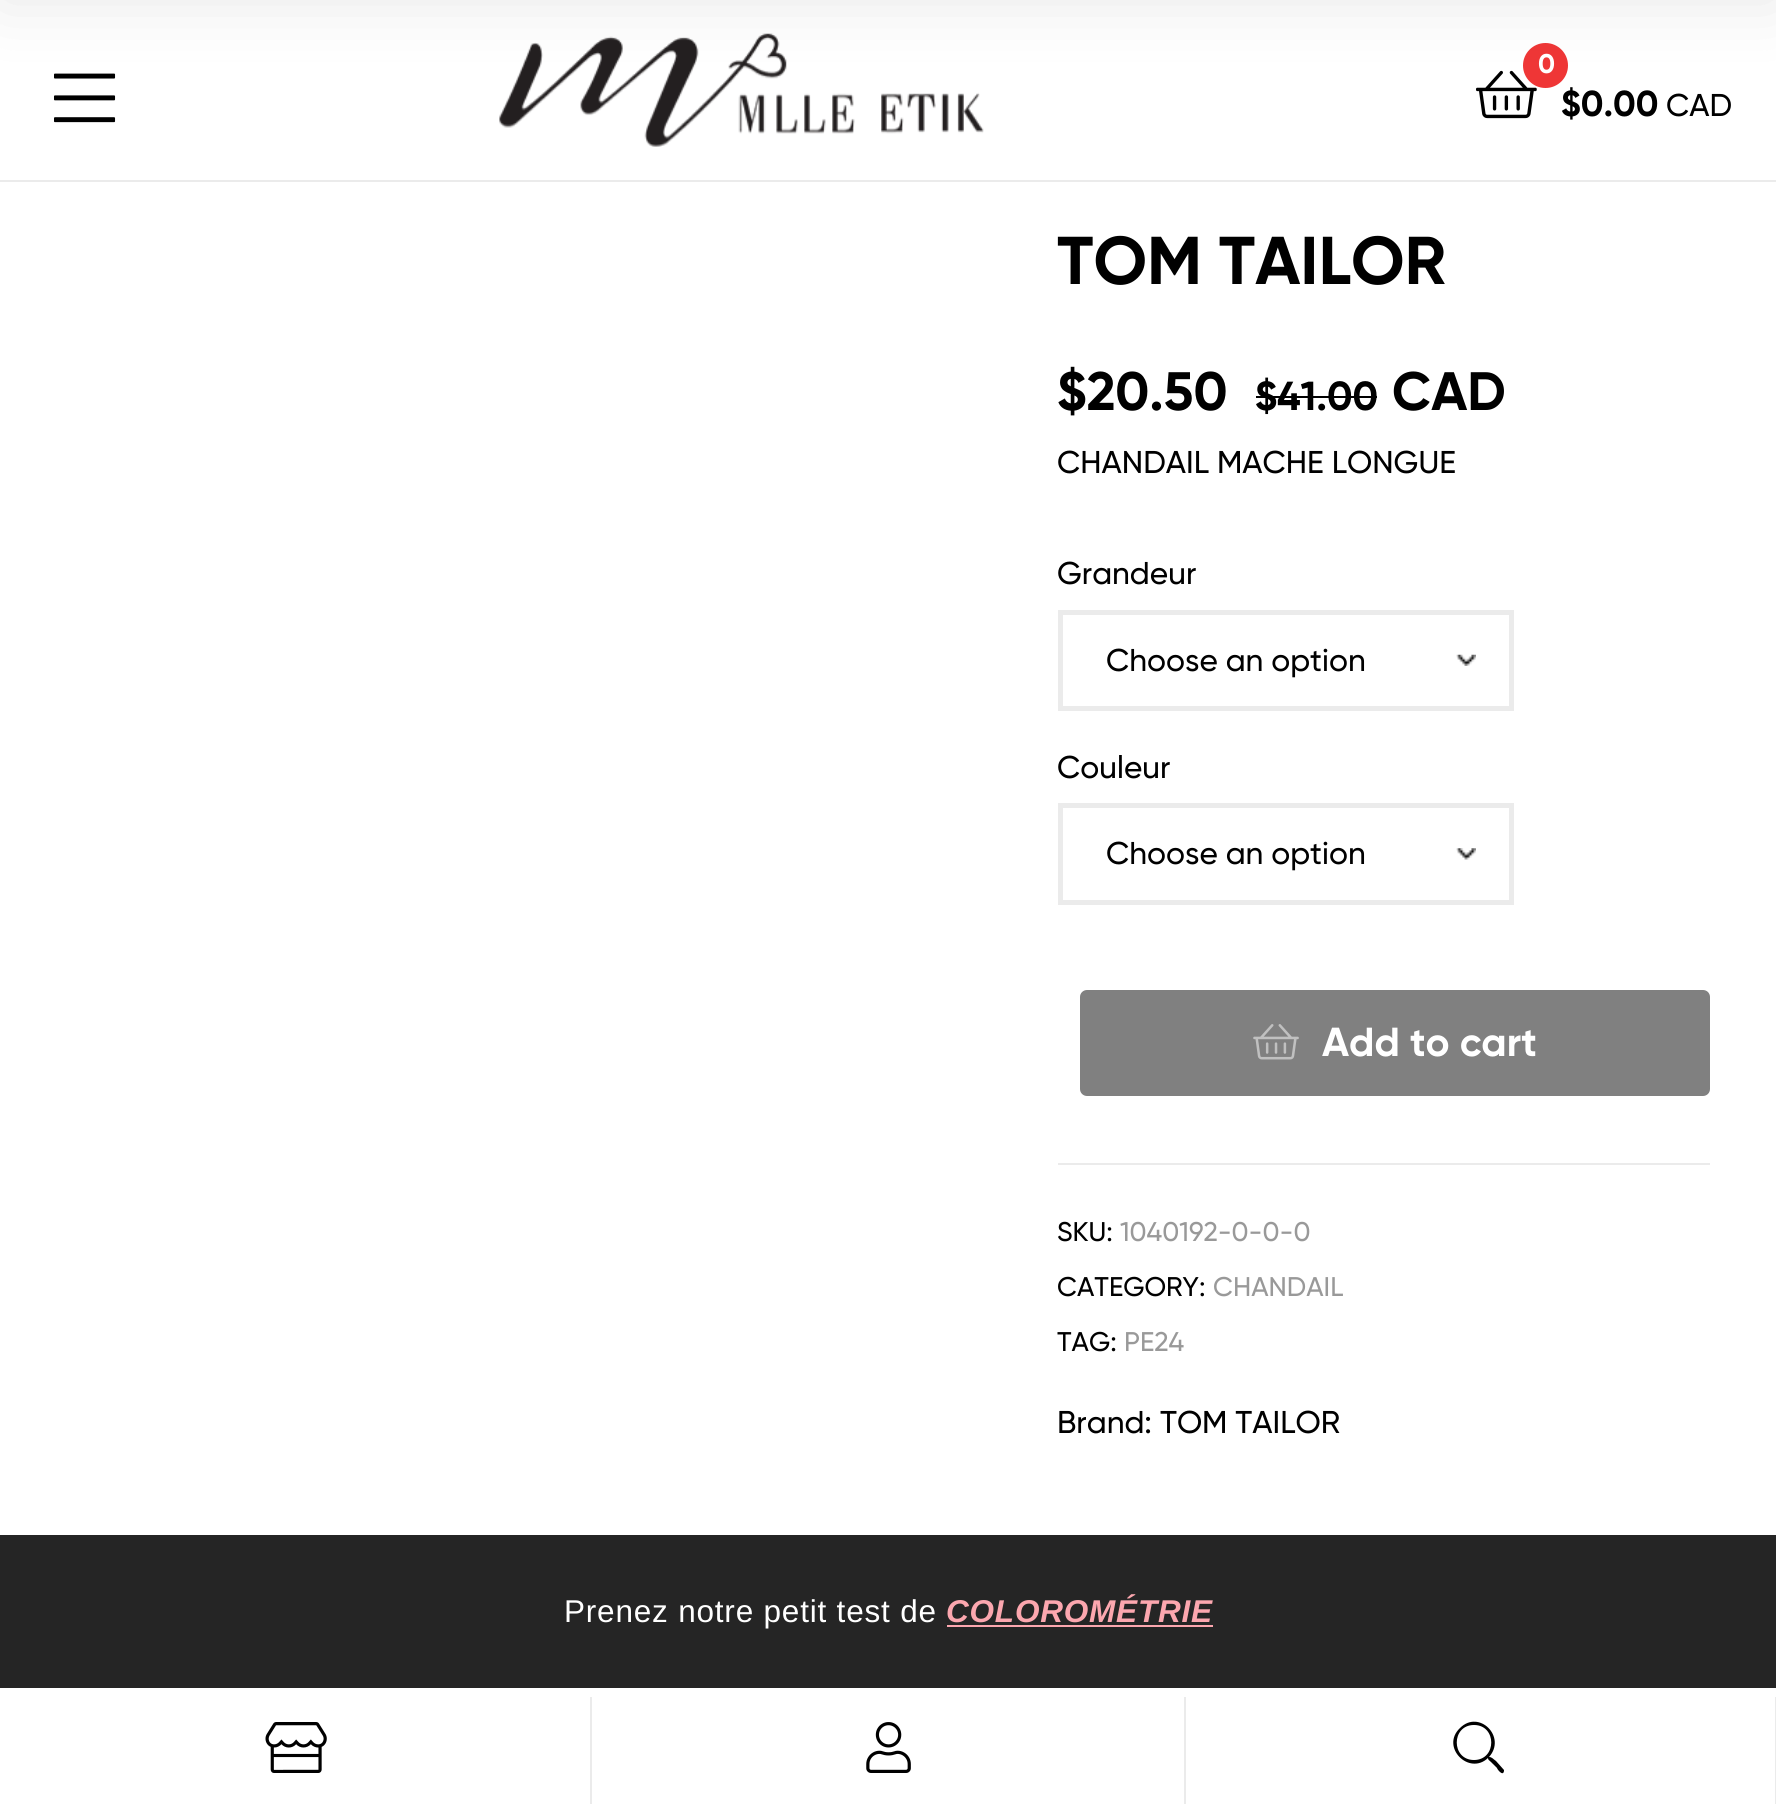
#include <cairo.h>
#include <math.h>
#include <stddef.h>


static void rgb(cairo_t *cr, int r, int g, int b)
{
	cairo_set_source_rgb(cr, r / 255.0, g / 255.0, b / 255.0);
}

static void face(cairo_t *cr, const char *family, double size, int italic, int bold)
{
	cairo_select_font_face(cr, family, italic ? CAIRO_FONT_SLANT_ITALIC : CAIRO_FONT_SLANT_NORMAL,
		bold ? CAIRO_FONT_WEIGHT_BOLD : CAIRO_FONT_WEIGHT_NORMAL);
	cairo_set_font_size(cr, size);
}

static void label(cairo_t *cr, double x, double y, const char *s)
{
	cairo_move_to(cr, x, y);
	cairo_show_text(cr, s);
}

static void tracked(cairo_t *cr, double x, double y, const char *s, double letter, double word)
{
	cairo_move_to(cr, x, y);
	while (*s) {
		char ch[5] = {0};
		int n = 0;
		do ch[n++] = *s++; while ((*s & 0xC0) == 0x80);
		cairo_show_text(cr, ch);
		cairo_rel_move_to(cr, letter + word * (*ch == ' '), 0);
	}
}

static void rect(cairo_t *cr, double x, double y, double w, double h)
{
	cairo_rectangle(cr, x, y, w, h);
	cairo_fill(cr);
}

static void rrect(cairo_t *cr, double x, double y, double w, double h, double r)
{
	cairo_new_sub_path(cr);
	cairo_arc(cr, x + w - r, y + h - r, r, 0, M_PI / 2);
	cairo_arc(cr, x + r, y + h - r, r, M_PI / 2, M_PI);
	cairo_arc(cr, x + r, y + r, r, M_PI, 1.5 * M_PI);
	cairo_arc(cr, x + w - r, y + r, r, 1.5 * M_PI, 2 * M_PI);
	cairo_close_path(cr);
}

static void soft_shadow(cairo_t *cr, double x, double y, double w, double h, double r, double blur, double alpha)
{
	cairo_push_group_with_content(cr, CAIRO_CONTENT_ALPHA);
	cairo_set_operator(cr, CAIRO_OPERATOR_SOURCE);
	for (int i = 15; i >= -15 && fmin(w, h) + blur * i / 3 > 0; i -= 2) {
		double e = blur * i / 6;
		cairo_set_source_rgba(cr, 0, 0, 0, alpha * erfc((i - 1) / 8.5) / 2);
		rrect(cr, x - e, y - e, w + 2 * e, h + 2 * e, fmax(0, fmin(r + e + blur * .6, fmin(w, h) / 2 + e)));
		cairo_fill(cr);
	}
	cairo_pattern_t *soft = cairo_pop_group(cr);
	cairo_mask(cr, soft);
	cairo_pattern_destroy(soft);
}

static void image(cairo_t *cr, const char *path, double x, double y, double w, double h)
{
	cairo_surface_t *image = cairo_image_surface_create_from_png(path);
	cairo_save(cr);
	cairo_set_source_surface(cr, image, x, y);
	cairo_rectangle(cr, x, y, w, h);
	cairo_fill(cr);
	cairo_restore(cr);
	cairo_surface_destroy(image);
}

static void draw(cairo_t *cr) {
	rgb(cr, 255, 255, 255);
	cairo_paint(cr);
	image(cr, "image0.png", 54, 73, 62, 50);
	image(cr, "image1.png", 499, 33, 485, 114);
	image(cr, "image2.png", 1476, 70, 61, 49);
	face(cr, "Gilroy", 36, 0, 1);
	rgb(cr, 0, 0, 0);
	label(cr, 1561, 116, "$0.00");
	rgb(cr, 239, 54, 54);
	cairo_new_path(cr);
	cairo_arc(cr, 1545.5, 65.5, 22.5, 0, 2 * M_PI);
	cairo_fill(cr);
	rgb(cr, 0, 0, 0);
	soft_shadow(cr, 0, -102, 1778, 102, 0, 34, 0.1);
	rgb(cr, 235, 235, 235);
	rect(cr, 0, 180, 1776, 2);
	face(cr, "Gilroy", 27, 0, 1);
	rgb(cr, 255, 255, 255);
	label(cr, 1538, 73, "0");
	face(cr, "Gilroy Medium", 31.5, 0, 0);
	rgb(cr, 0, 0, 0);
	label(cr, 1666, 116, "CAD");
	face(cr, "Gilroy", 67.5, 0, 1);
	label(cr, 1057, 284, "TOM TAILOR");
	face(cr, "Gilroy", 54, 0, 1);
	label(cr, 1057, 410, "$20.50");
	face(cr, "Gilroy", 40.5, 0, 1);
	label(cr, 1255, 410, "$");
	rect(cr, 1256, 396, 22, 2);
	label(cr, 1277, 410, "41.00");
	rect(cr, 1278, 396, 99, 2);
	face(cr, "Gilroy", 54, 0, 1);
	label(cr, 1392, 410, "CAD");
	face(cr, "Gilroy Medium", 31.5, 0, 0);
	label(cr, 1057, 473, "CHANDAIL MACHE LONGUE");
	label(cr, 1057, 584, "Grandeur");
	image(cr, "image3.png", 1456, 654, 20, 12);
	cairo_rectangle(cr, 1060.5, 612.5, 451, 96);
	rgb(cr, 235, 235, 235);
	cairo_set_line_width(cr, 5);
	cairo_stroke(cr);
	rgb(cr, 0, 0, 0);
	label(cr, 1106, 671, "Choose an option");
	label(cr, 1057, 778, "Couleur");
	image(cr, "image4.png", 1456, 848, 20, 12);
	cairo_rectangle(cr, 1060.5, 805.5, 451, 97);
	rgb(cr, 235, 235, 235);
	cairo_stroke(cr);
	rgb(cr, 0, 0, 0);
	label(cr, 1106, 864, "Choose an option");
	rgb(cr, 128, 128, 128);
	rrect(cr, 1080, 990, 630, 106, 7);
	cairo_fill(cr);
	image(cr, "image5.png", 1253, 1024, 46, 36);
	face(cr, "Gilroy", 40.5, 0, 1);
	rgb(cr, 255, 255, 255);
	label(cr, 1322, 1056, "Add to cart");
	rgb(cr, 235, 235, 235);
	rect(cr, 1058, 1163, 652, 2);
	face(cr, "Gilroy Medium", 27, 0, 0);
	rgb(cr, 0, 0, 0);
	label(cr, 1057, 1241, "SKU:");
	rgb(cr, 153, 153, 153);
	label(cr, 1120, 1241, "1040192-0-0-0");
	rgb(cr, 0, 0, 0);
	label(cr, 1057, 1296, "CATEGORY:");
	rgb(cr, 153, 153, 153);
	label(cr, 1213, 1296, "CHANDAIL");
	rgb(cr, 0, 0, 0);
	label(cr, 1057, 1351, "TAG:");
	rgb(cr, 153, 153, 153);
	label(cr, 1124, 1351, "PE24");
	face(cr, "Gilroy Medium", 31.5, 0, 0);
	rgb(cr, 0, 0, 0);
	label(cr, 1057, 1433, "Brand: TOM TAILOR");
	rgb(cr, 37, 37, 37);
	rect(cr, 0, 1535, 1776, 153);
	face(cr, "Liberation Sans", 31.5, 0, 0);
	rgb(cr, 255, 255, 255);
	tracked(cr, 564, 1622, "Prenez notre petit test de", 0.8, 0);
	face(cr, "Liberation Sans", 31.5, 1, 1);
	rgb(cr, 252, 167, 175);
	tracked(cr, 946, 1622, "COLOROMÉTRIE", 0.8, 0);
	rect(cr, 947, 1625, 266, 2);
	rgb(cr, 235, 235, 235);
	rect(cr, 590, 1697, 2, 107);
	image(cr, "image6.png", 265, 1722, 62, 51);
	rect(cr, 1184, 1697, 2, 107);
	image(cr, "image7.png", 866, 1722, 45, 51);
	rect(cr, 1775, 1697, 1, 107);
	rgb(cr, 0, 0, 0);
	cairo_new_path(cr);
	cairo_move_to(cr, 1504, 1770);
	cairo_line_to(cr, 1496, 1761);
	cairo_curve_to(cr, 1493, 1759, 1492, 1757, 1489, 1757);
	cairo_curve_to(cr, 1507, 1737, 1479, 1709, 1460, 1728);
	cairo_curve_to(cr, 1440, 1747, 1469, 1776, 1488, 1758);
	cairo_curve_to(cr, 1488, 1760, 1489, 1760, 1491, 1762);
	cairo_line_to(cr, 1497, 1768);
	cairo_curve_to(cr, 1497, 1769, 1503, 1777, 1504, 1771);
	cairo_close_path(cr);
	cairo_move_to(cr, 1474, 1760);
	cairo_curve_to(cr, 1451, 1760, 1451, 1725, 1474, 1725);
	cairo_curve_to(cr, 1497, 1725, 1497, 1760, 1474, 1760);
	cairo_close_path(cr);
	cairo_fill(cr);
}

int main(void) {
	cairo_surface_t *surface = cairo_image_surface_create(CAIRO_FORMAT_RGB24, 1776, 1804);
	cairo_t *cr = cairo_create(surface);
	cairo_font_options_t *options = cairo_font_options_create();
	cairo_font_options_set_hint_metrics(options, CAIRO_HINT_METRICS_OFF);
	cairo_font_options_set_hint_style(options, CAIRO_HINT_STYLE_NONE);
	cairo_set_font_options(cr, options);
	cairo_set_miter_limit(cr, 4);
	draw(cr);
	cairo_surface_write_to_png(surface, "render.png");
	cairo_font_options_destroy(options);
	cairo_destroy(cr);
	cairo_surface_destroy(surface);
	return 0;
}
